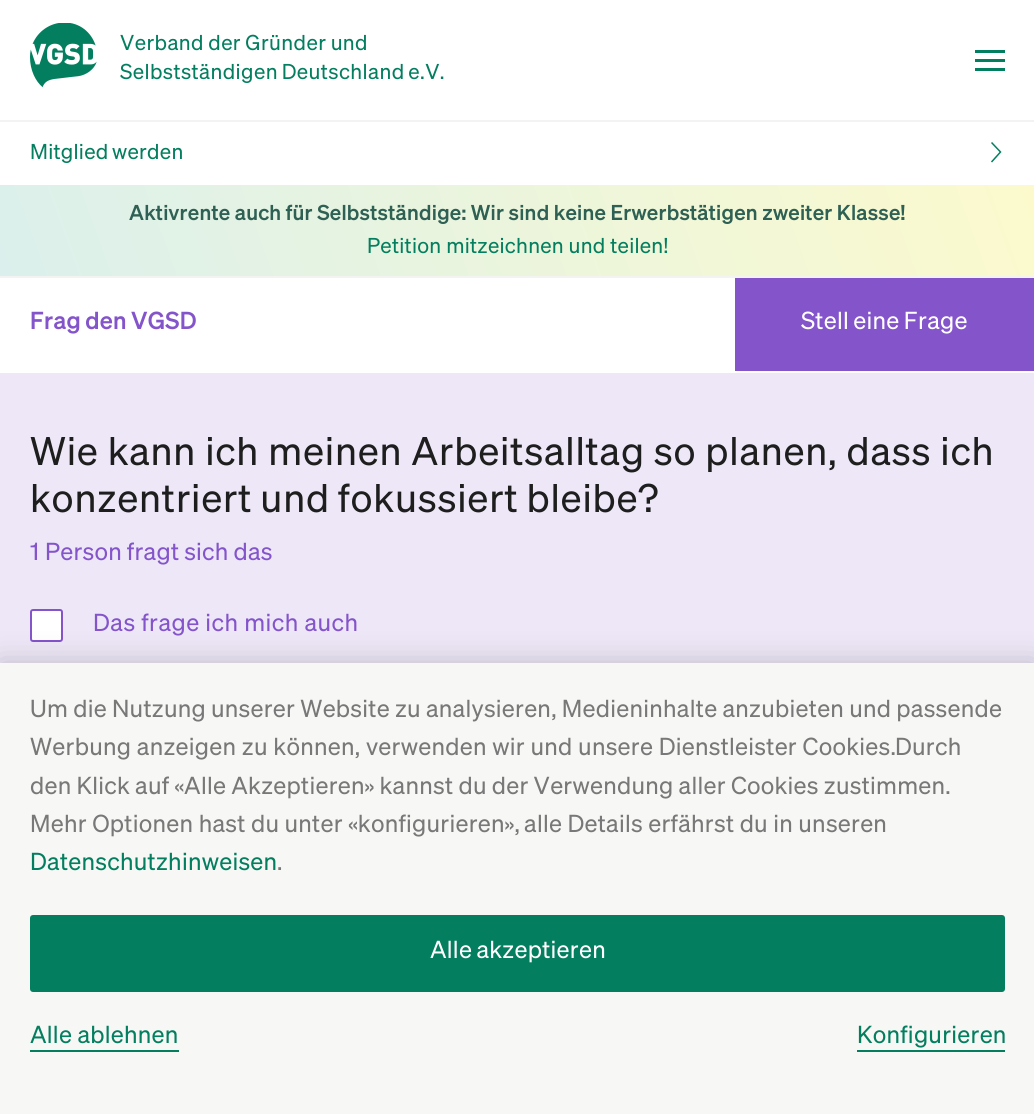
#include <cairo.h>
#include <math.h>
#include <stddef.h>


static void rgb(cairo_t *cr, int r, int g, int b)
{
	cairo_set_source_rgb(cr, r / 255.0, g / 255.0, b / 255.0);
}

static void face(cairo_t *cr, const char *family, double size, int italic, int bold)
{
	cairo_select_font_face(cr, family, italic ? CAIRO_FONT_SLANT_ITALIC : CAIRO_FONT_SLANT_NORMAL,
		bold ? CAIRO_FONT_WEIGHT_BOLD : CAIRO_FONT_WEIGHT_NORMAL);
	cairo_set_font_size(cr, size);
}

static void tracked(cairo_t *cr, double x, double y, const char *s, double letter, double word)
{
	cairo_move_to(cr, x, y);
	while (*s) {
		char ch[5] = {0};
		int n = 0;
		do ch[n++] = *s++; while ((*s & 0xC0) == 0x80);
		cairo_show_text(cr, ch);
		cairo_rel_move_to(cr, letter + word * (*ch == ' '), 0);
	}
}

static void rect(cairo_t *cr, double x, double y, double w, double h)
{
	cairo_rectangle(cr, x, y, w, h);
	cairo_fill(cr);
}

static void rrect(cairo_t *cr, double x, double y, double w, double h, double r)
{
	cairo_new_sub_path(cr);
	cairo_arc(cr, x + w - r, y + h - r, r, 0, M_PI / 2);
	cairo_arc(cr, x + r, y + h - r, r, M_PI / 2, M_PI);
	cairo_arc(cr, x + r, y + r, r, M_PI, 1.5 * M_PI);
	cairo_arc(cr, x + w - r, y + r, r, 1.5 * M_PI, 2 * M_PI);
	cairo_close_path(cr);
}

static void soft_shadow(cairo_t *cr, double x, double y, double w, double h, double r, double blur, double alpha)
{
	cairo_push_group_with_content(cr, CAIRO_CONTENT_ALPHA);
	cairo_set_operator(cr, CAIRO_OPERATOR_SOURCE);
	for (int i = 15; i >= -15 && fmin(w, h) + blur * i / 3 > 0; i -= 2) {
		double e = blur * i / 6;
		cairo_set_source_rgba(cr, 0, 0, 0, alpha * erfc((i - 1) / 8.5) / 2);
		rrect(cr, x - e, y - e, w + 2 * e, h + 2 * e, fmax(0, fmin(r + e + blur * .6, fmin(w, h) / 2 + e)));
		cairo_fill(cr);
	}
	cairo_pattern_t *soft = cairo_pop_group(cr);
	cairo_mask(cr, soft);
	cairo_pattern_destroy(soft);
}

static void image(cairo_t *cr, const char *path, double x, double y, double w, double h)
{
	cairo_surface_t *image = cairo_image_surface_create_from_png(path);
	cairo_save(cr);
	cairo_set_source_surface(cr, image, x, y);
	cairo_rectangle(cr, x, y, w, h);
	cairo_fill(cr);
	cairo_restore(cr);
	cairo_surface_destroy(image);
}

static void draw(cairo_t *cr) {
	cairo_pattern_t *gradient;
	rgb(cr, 255, 255, 255);
	cairo_paint(cr);
	image(cr, "image0.png", 30, 23, 67, 65);
	face(cr, "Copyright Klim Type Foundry", 21, 0, 0);
	rgb(cr, 3, 126, 95);
	tracked(cr, 120, 50, "Verband der Gründer und", 0.4, -0.5);
	tracked(cr, 120, 79, "Selbstständigen Deutschland e.V.", 0.4, -1);
	rect(cr, 975, 50, 30, 3);
	rect(cr, 975, 59, 30, 3);
	rect(cr, 975, 68, 30, 3);
	cairo_new_path(cr);
	cairo_move_to(cr, 991.5, 162);
	cairo_line_to(cr, 1000.5, 152);
	cairo_line_to(cr, 991.5, 142.5);
	cairo_set_line_width(cr, 1.5);
	cairo_stroke(cr);
	rgb(cr, 243, 243, 241);
	rect(cr, 0, 120, 1034, 2);
	rgb(cr, 3, 126, 95);
	tracked(cr, 30, 159, "Mitglied werden", 0.25, -1);
	gradient = cairo_pattern_create_linear(989, 59, 46, 402);
	cairo_pattern_add_color_stop_rgba(gradient, 0, 0.988, 0.98, 0.804, 1);
	cairo_pattern_add_color_stop_rgba(gradient, 1, 0.859, 0.941, 0.925, 1);
	cairo_set_source(cr, gradient);
	cairo_pattern_destroy(gradient);
	rect(cr, 0, 185, 1034, 91);
	face(cr, "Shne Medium", 21, 0, 0);
	rgb(cr, 47, 96, 84);
	tracked(cr, 129, 220, "Aktivrente auch für Selbstständige: Wir sind keine Erwerbstätigen zweiter Klasse!", 0.25, -0.25);
	face(cr, "Copyright Klim Type Foundry", 21, 0, 0);
	rgb(cr, 3, 126, 95);
	tracked(cr, 367, 253, "Petition mitzeichnen und teilen!", 0.25, 0);
	rgb(cr, 243, 243, 241);
	rect(cr, 0, 276, 1034, 2);
	face(cr, "Shne Medium", 24, 0, 0);
	rgb(cr, 132, 84, 203);
	tracked(cr, 30, 329, "Frag den VGSD", 0.25, -1);
	rect(cr, 735, 278, 299, 93);
	face(cr, "Copyright Klim Type Foundry", 24, 0, 0);
	rgb(cr, 255, 255, 255);
	tracked(cr, 801, 329, "Stell eine Frage", 0.25, -1);
	rgb(cr, 237, 231, 247);
	rect(cr, 0, 373, 1034, 290);
	face(cr, "Copyright Klim Type Foundry", 39, 0, 0);
	rgb(cr, 30, 30, 30);
	tracked(cr, 30, 465, "Wie kann ich meinen Arbeitsalltag so planen, dass ich", 0.78, 0);
	tracked(cr, 30, 512, "konzentriert und fokussiert bleibe?", 0.78, -1);
	face(cr, "Copyright Klim Type Foundry", 24, 0, 0);
	rgb(cr, 132, 84, 203);
	tracked(cr, 30, 560, "1", 0.25, 0);
	tracked(cr, 45, 560, "Person fragt sich das", 0.25, -0.5);
	rgb(cr, 255, 255, 255);
	rrect(cr, 31, 610, 31, 31, 2);
	cairo_fill_preserve(cr);
	rgb(cr, 132, 84, 203);
	cairo_set_line_width(cr, 2);
	cairo_stroke(cr);
	tracked(cr, 93, 631, "Das frage ich mich auch", 0.5, 0);
	rgb(cr, 0, 0, 0);
	soft_shadow(cr, 0, 663, 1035, 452, 0, 15, 0.2);
	rgb(cr, 247, 247, 245);
	rect(cr, 0, 663, 1034, 451);
	rgb(cr, 120, 120, 120);
	tracked(cr, 30, 717, "Um die Nutzung unserer Website zu analysieren, Medieninhalte anzubieten und passende", 0.25, -0.25);
	tracked(cr, 30, 755, "Werbung anzeigen zu können, verwenden wir und unsere Dienstleister Cookies.", 0.25, 0.25);
	tracked(cr, 895, 755, "Durch", 0.25, 0);
	tracked(cr, 30, 794, "den Klick auf «Alle Akzeptieren» kannst du der Verwendung aller Cookies zustimmen.", 0.25, -0.25);
	tracked(cr, 30, 832, "Mehr Optionen hast du unter «konfigurieren»,", 0.25, 0);
	tracked(cr, 524, 832, "alle Details erfährst du in unseren", 0.25, 0);
	rgb(cr, 3, 126, 95);
	tracked(cr, 30, 870, "Datenschutzhinweisen", 0.25, 0);
	rgb(cr, 120, 120, 120);
	tracked(cr, 277, 870, ".", 0.25, 0);
	rgb(cr, 3, 126, 95);
	rrect(cr, 31, 916, 973, 75, 2);
	cairo_fill_preserve(cr);
	cairo_stroke(cr);
	rgb(cr, 255, 255, 255);
	tracked(cr, 430, 958, "Alle akzeptieren", 0.25, -1);
	rgb(cr, 3, 126, 95);
	tracked(cr, 30, 1043, "Alle ablehnen", 0.25, 0);
	rect(cr, 30, 1050, 149, 2);
	tracked(cr, 857, 1043, "Konfigurieren", 0.25, 0);
	rect(cr, 857, 1050, 148, 2);
}

int main(void) {
	cairo_surface_t *surface = cairo_image_surface_create(CAIRO_FORMAT_RGB24, 1034, 1114);
	cairo_t *cr = cairo_create(surface);
	cairo_font_options_t *options = cairo_font_options_create();
	cairo_font_options_set_hint_metrics(options, CAIRO_HINT_METRICS_OFF);
	cairo_font_options_set_hint_style(options, CAIRO_HINT_STYLE_NONE);
	cairo_set_font_options(cr, options);
	cairo_set_miter_limit(cr, 4);
	draw(cr);
	cairo_surface_write_to_png(surface, "render.png");
	cairo_font_options_destroy(options);
	cairo_destroy(cr);
	cairo_surface_destroy(surface);
	return 0;
}
